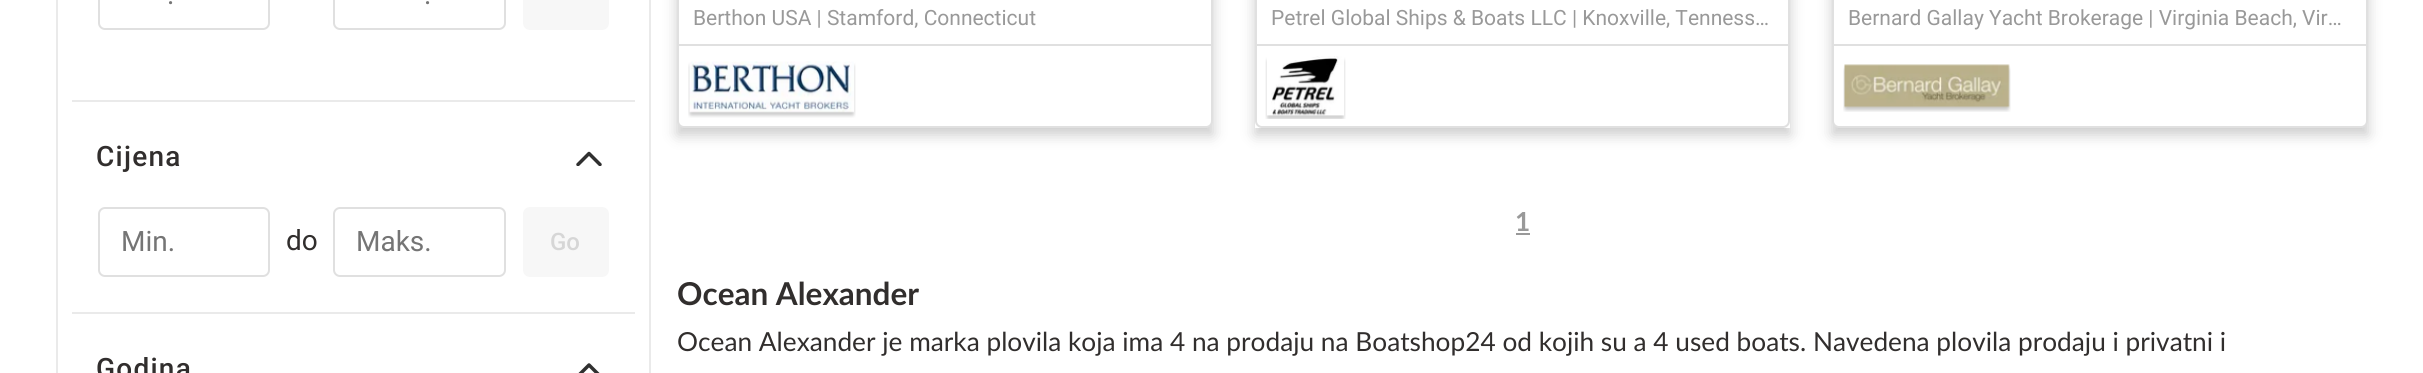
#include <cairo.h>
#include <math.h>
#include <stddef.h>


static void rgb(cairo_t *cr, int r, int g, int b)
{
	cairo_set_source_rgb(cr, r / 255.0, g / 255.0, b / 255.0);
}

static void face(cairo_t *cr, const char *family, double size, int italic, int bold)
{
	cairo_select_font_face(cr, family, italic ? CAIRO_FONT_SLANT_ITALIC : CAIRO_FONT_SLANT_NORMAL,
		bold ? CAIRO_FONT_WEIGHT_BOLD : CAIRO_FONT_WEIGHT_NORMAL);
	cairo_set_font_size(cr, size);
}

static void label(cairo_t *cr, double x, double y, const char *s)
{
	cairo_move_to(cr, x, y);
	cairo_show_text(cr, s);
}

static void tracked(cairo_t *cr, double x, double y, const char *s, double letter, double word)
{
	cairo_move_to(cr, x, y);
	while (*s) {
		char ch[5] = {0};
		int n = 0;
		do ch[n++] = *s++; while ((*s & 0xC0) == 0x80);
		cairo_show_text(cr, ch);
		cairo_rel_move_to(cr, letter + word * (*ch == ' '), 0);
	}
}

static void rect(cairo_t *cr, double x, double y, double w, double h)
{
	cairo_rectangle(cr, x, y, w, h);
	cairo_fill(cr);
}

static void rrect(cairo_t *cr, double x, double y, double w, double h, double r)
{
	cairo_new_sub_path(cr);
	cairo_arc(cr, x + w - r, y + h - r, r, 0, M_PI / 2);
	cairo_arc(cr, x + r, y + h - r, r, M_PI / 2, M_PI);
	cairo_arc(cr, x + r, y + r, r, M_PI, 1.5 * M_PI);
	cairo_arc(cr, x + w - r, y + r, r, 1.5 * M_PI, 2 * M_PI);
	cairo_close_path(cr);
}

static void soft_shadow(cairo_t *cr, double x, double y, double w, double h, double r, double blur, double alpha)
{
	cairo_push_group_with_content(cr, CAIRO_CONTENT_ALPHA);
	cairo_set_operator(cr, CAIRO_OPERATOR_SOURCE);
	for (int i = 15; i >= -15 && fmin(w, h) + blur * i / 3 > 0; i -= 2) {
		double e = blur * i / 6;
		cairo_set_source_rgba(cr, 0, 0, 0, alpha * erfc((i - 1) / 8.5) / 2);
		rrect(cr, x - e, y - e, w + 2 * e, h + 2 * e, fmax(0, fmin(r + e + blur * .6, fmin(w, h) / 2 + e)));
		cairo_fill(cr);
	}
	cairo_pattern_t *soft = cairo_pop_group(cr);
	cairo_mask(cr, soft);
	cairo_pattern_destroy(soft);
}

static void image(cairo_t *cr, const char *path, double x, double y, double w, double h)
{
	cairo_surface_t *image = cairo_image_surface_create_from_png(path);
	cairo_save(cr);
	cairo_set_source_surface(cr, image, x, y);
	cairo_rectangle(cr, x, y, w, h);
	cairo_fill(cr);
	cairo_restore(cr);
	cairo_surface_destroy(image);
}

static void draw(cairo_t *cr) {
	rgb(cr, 255, 255, 255);
	cairo_paint(cr);
	cairo_rectangle(cr, 57, -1, 593, 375);
	rgb(cr, 234, 234, 234);
	cairo_stroke(cr);
	rect(cr, 72, 100, 563, 2);
	rrect(cr, 99, -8, 170, 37, 6);
	rgb(cr, 224, 224, 224);
	cairo_stroke(cr);
	face(cr, "Roboto", 28, 0, 0);
	rgb(cr, 117, 117, 117);
	label(cr, 167, 4, ".");
	rrect(cr, 334, -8, 171, 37, 6);
	rgb(cr, 224, 224, 224);
	cairo_stroke(cr);
	rgb(cr, 117, 117, 117);
	label(cr, 424, 4, ".");
	rgb(cr, 247, 247, 247);
	rrect(cr, 523, -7, 86, 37, 7);
	cairo_fill(cr);
	rgb(cr, 234, 234, 234);
	rect(cr, 72, 312, 563, 2);
	face(cr, "Roboto Medium", 28, 0, 0);
	rgb(cr, 49, 46, 45);
	tracked(cr, 96, 166, "Cijena", 1.25, 0);
	cairo_save(cr);
	cairo_rectangle(cr, 576, 149, 26, 17);
	cairo_clip(cr);
	cairo_new_path(cr);
	cairo_move_to(cr, 600, 164.5);
	cairo_line_to(cr, 589, 153.5);
	cairo_line_to(cr, 578, 164.5);
	rgb(cr, 48, 48, 48);
	cairo_set_line_width(cr, 3.5);
	cairo_set_line_cap(cr, CAIRO_LINE_CAP_ROUND);
	cairo_set_line_join(cr, CAIRO_LINE_JOIN_ROUND);
	cairo_stroke(cr);
	cairo_restore(cr);
	rrect(cr, 99, 208, 170, 68, 6);
	rgb(cr, 224, 224, 224);
	cairo_stroke(cr);
	face(cr, "Roboto", 28, 0, 0);
	rgb(cr, 117, 117, 117);
	label(cr, 121, 251, "Min.");
	rgb(cr, 49, 46, 45);
	label(cr, 286, 250, "do");
	rrect(cr, 334, 208, 171, 68, 6);
	rgb(cr, 224, 224, 224);
	cairo_stroke(cr);
	rgb(cr, 117, 117, 117);
	label(cr, 356, 251, "Maks.");
	rgb(cr, 247, 247, 247);
	rrect(cr, 523, 207, 86, 70, 7);
	cairo_fill(cr);
	face(cr, "Roboto Medium", 24, 0, 0);
	rgb(cr, 214, 214, 214);
	label(cr, 550, 250, "Go");
	face(cr, "Roboto Medium", 28, 0, 0);
	rgb(cr, 49, 46, 45);
	tracked(cr, 96, 378, "Godina", 1.25, 0);
	cairo_new_path(cr);
	cairo_move_to(cr, 600, 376);
	cairo_line_to(cr, 589, 365);
	cairo_line_to(cr, 578, 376);
	rgb(cr, 48, 48, 48);
	cairo_set_line_width(cr, 3.5);
	cairo_set_line_cap(cr, CAIRO_LINE_CAP_ROUND);
	cairo_set_line_join(cr, CAIRO_LINE_JOIN_ROUND);
	cairo_stroke(cr);
	rgb(cr, 0, 0, 0);
	soft_shadow(cr, 677, -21, 536, 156, 0, 7, 0.2);
	rgb(cr, 255, 255, 255);
	rrect(cr, 678, -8, 534, 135, 6);
	cairo_fill_preserve(cr);
	rgb(cr, 224, 224, 224);
	cairo_set_line_width(cr, 2);
	cairo_set_line_cap(cr, CAIRO_LINE_CAP_BUTT);
	cairo_set_line_join(cr, CAIRO_LINE_JOIN_MITER);
	cairo_stroke(cr);
	face(cr, "Roboto", 21, 0, 0);
	rgb(cr, 153, 153, 153);
	label(cr, 693, 25, "Berthon USA | Stamford, Connecticut");
	rgb(cr, 224, 224, 224);
	rect(cr, 679, 44, 532, 2);
	image(cr, "image0.png", 688, 61, 168, 57);
	cairo_save(cr);
	cairo_set_fill_rule(cr, CAIRO_FILL_RULE_EVEN_ODD);
	cairo_new_path(cr);
	cairo_move_to(cr, 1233, 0);
	cairo_line_to(cr, 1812, 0);
	cairo_line_to(cr, 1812, 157);
	cairo_line_to(cr, 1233, 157);
	cairo_close_path(cr);
	cairo_move_to(cr, 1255, -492);
	cairo_line_to(cr, 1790, -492);
	cairo_line_to(cr, 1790, 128);
	cairo_line_to(cr, 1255, 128);
	cairo_close_path(cr);
	cairo_clip(cr);
	rgb(cr, 0, 0, 0);
	soft_shadow(cr, 1255, -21, 535, 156, 0, 7, 0.2);
	cairo_restore(cr);
	rgb(cr, 255, 255, 255);
	rrect(cr, 1256, -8, 533, 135, 6);
	cairo_fill_preserve(cr);
	rgb(cr, 224, 224, 224);
	cairo_stroke(cr);
	rgb(cr, 153, 153, 153);
	label(cr, 1271, 25, "Petrel Global Ships & Boats LLC | Knoxville, Tenness…");
	rgb(cr, 224, 224, 224);
	rect(cr, 1257, 44, 532, 2);
	image(cr, "image1.png", 1265, 56, 81, 63);
	rgb(cr, 0, 0, 0);
	soft_shadow(cr, 1832, -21, 536, 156, 0, 7, 0.2);
	rgb(cr, 255, 255, 255);
	rrect(cr, 1833, -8, 534, 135, 6);
	cairo_fill_preserve(cr);
	rgb(cr, 224, 224, 224);
	cairo_stroke(cr);
	rgb(cr, 153, 153, 153);
	label(cr, 1848, 25, "Bernard Gallay Yacht Brokerage | Virginia Beach, Vir…");
	rgb(cr, 224, 224, 224);
	rect(cr, 1834, 44, 532, 2);
	image(cr, "image2.png", 1843, 64, 168, 48);
	face(cr, "Lato", 26.25, 0, 1);
	rgb(cr, 153, 153, 153);
	label(cr, 1515, 231, "1");
	rect(cr, 1516, 233, 14, 2);
	face(cr, "Lato", 31.5, 0, 1);
	rgb(cr, 49, 46, 45);
	label(cr, 677, 305, "Ocean Alexander");
	face(cr, "Lato", 26.25, 0, 0);
	label(cr, 677, 351, "Ocean Alexander je marka plovila koja ima 4 na prodaju na Boatshop24 od kojih su a 4 used boats. Navedena plovila prodaju i privatni i");
}

int main(void) {
	cairo_surface_t *surface = cairo_image_surface_create(CAIRO_FORMAT_RGB24, 2423, 373);
	cairo_t *cr = cairo_create(surface);
	cairo_font_options_t *options = cairo_font_options_create();
	cairo_font_options_set_hint_metrics(options, CAIRO_HINT_METRICS_OFF);
	cairo_font_options_set_hint_style(options, CAIRO_HINT_STYLE_NONE);
	cairo_set_font_options(cr, options);
	cairo_set_miter_limit(cr, 4);
	draw(cr);
	cairo_surface_write_to_png(surface, "render.png");
	cairo_font_options_destroy(options);
	cairo_destroy(cr);
	cairo_surface_destroy(surface);
	return 0;
}
